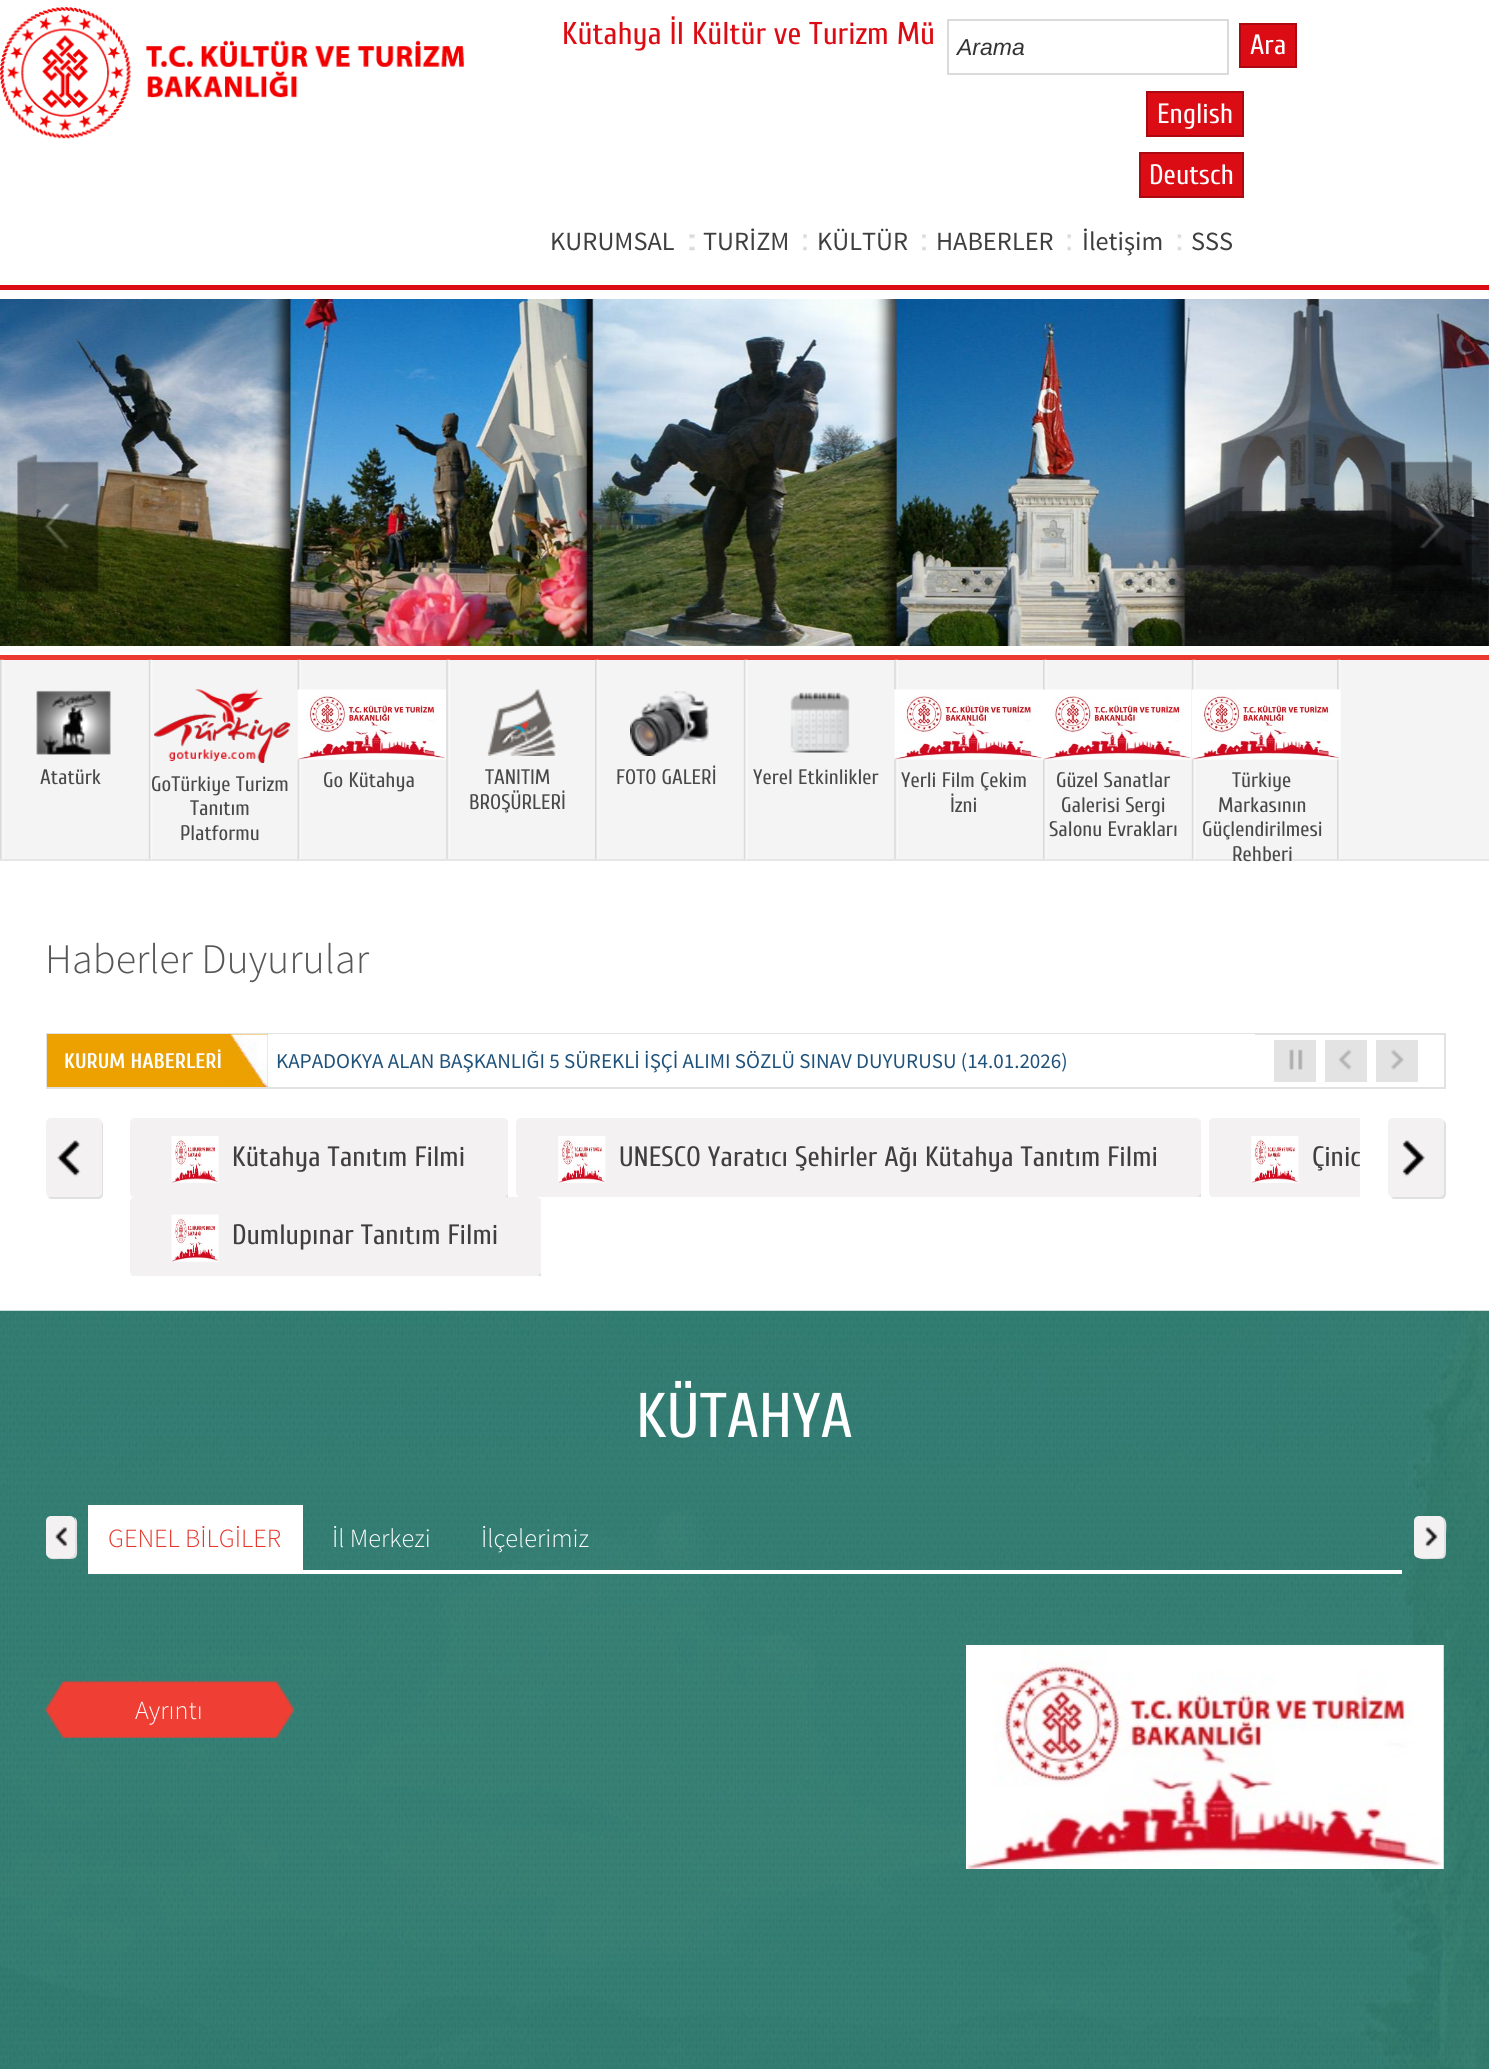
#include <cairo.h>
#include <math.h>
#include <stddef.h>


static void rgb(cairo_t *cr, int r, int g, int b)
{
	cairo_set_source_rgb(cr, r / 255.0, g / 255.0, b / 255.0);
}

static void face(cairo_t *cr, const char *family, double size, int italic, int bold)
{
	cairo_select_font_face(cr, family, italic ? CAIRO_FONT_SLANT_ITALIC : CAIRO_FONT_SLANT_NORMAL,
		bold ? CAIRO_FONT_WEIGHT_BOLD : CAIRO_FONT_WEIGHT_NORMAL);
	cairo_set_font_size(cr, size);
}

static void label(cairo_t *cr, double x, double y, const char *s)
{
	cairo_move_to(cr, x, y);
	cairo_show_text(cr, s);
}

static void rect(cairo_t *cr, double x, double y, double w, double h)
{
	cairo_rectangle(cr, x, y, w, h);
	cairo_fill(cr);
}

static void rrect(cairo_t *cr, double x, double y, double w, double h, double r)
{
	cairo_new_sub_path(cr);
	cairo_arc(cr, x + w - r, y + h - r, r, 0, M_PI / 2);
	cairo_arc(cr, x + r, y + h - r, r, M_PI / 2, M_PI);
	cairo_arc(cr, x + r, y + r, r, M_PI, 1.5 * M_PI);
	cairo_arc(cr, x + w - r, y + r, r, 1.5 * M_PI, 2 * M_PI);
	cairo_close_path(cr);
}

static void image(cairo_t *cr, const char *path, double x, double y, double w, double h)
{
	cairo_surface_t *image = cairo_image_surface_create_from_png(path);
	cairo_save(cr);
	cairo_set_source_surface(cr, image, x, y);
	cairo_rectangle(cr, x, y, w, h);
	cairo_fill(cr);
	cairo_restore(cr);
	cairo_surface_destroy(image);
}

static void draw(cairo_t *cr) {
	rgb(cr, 255, 255, 255);
	cairo_paint(cr);
	rgb(cr, 220, 12, 21);
	rect(cr, 0, 285, 1489, 5);
	image(cr, "image0.png", 0, 7, 464, 132);
	face(cr, "Cuprum", 31.5, 0, 0);
	label(cr, 562, 44, "Kütahya İl Kültür ve Turizm Mü");
	cairo_rectangle(cr, 948, 20, 280, 54);
	rgb(cr, 219, 219, 219);
	cairo_stroke(cr);
	face(cr, "Liberation Sans", 23, 1, 0);
	rgb(cr, 51, 51, 51);
	label(cr, 957, 55, "Arama");
	rgb(cr, 220, 12, 21);
	cairo_rectangle(cr, 1240, 24, 56, 43);
	cairo_fill_preserve(cr);
	rgb(cr, 170, 9, 17);
	cairo_stroke(cr);
	face(cr, "Cuprum", 28, 0, 0);
	rgb(cr, 255, 255, 255);
	label(cr, 1250, 54, "Ara");
	rgb(cr, 220, 12, 21);
	cairo_rectangle(cr, 1147, 92, 96, 44);
	cairo_fill_preserve(cr);
	rgb(cr, 170, 9, 17);
	cairo_stroke(cr);
	rgb(cr, 255, 255, 255);
	label(cr, 1157, 123, "English");
	rgb(cr, 220, 12, 21);
	cairo_rectangle(cr, 1140, 153, 103, 44);
	cairo_fill_preserve(cr);
	rgb(cr, 170, 9, 17);
	cairo_stroke(cr);
	rgb(cr, 255, 255, 255);
	label(cr, 1149, 184, "Deutsch");
	face(cr, "Source Sans Pro", 26.25, 0, 0);
	rgb(cr, 64, 62, 62);
	label(cr, 550, 250, "KURUMSAL");
	image(cr, "image1.png", 689, 234, 6, 17);
	label(cr, 703, 250, "TURİZM");
	image(cr, "image2.png", 803, 234, 4, 17);
	label(cr, 817, 250, "KÜLTÜR");
	image(cr, "image2.png", 922, 234, 4, 17);
	label(cr, 936, 250, "HABERLER");
	image(cr, "image3.png", 1067, 234, 4, 17);
	label(cr, 1082, 250, "İletişim");
	image(cr, "image4.png", 1177, 234, 5, 17);
	label(cr, 1191, 250, "SSS");
	image(cr, "image5.png", 0, 299, 1489, 347);
	image(cr, "image6.png", 17, 454, 82, 138);
	image(cr, "image7.png", 1391, 454, 81, 137);
	rgb(cr, 244, 244, 244);
	rect(cr, 3, 660, 1486, 199);
	rgb(cr, 235, 57, 47);
	rect(cr, 0, 655, 1489, 5);
	rgb(cr, 230, 230, 230);
	rect(cr, 0, 859, 1489, 2);
	image(cr, "image8.png", 0, 659, 4, 201);
	image(cr, "image9.png", 36, 690, 75, 65);
	face(cr, "Cuprum", 21, 0, 0);
	rgb(cr, 73, 73, 73);
	label(cr, 40, 784, "Atatürk");
	image(cr, "image10.png", 148, 659, 5, 201);
	image(cr, "image11.png", 154, 689, 137, 74);
	label(cr, 151, 791, "GoTürkiye Turizm");
	label(cr, 190, 815, "Tanıtım");
	label(cr, 180, 840, "Platformu");
	image(cr, "image12.png", 297, 659, 4, 201);
	image(cr, "image13.png", 297, 689, 149, 71);
	label(cr, 323, 787, "Go Kütahya");
	image(cr, "image14.png", 446, 659, 4, 200);
	image(cr, "image15.png", 487, 689, 69, 67);
	label(cr, 485, 784, "TANITIM");
	label(cr, 469, 809, "BROŞÜRLERİ");
	image(cr, "image8.png", 595, 659, 4, 201);
	image(cr, "image16.png", 630, 691, 79, 65);
	label(cr, 616, 784, "FOTO GALERİ");
	image(cr, "image10.png", 743, 659, 5, 201);
	image(cr, "image17.png", 790, 692, 60, 61);
	label(cr, 753, 784, "Yerel Etkinlikler");
	image(cr, "image14.png", 894, 659, 4, 200);
	image(cr, "image18.png", 894, 689, 149, 71);
	label(cr, 901, 787, "Yerli Film Çekim");
	label(cr, 950, 812, "İzni");
	image(cr, "image8.png", 1043, 659, 4, 201);
	image(cr, "image19.png", 1043, 689, 149, 71);
	label(cr, 1056, 787, "Güzel Sanatlar");
	label(cr, 1061, 812, "Galerisi Sergi");
	label(cr, 1049, 836, "Salonu Evrakları");
	image(cr, "image20.png", 1191, 659, 5, 201);
	image(cr, "image8.png", 1337, 659, 4, 201);
	image(cr, "image21.png", 1192, 689, 149, 71);
	label(cr, 1232, 787, "Türkiye");
	label(cr, 1218, 812, "Markasının");
	label(cr, 1202, 836, "Güçlendirilmesi");
	label(cr, 1232, 861, "Rehberi");
	face(cr, "Source Sans Pro Light", 42, 0, 0);
	rgb(cr, 86, 86, 86);
	label(cr, 45, 973, "Haberler Duyurular");
	cairo_rectangle(cr, 47, 1034, 1398, 54);
	rgb(cr, 226, 226, 226);
	cairo_stroke(cr);
	rgb(cr, 255, 255, 255);
	rect(cr, 268, 1034, 987, 1);
	rgb(cr, 236, 161, 0);
	rect(cr, 47, 1034, 221, 53);
	image(cr, "image22.png", 228, 1034, 40, 53);
	face(cr, "Cuprum", 21, 0, 1);
	rgb(cr, 255, 255, 255);
	label(cr, 64, 1068, "KURUM HABERLERİ");
	face(cr, "Source Sans Pro", 21, 0, 0);
	rgb(cr, 31, 82, 123);
	label(cr, 276, 1068, "KAPADOKYA ALAN BAŞKANLIĞI 5 SÜREKLİ İŞÇİ ALIMI SÖZLÜ SINAV DUYURUSU (14.01.2026)");
	rgb(cr, 227, 227, 227);
	rect(cr, 1274, 1040, 42, 42);
	image(cr, "image23.png", 1289, 1049, 14, 21);
	rect(cr, 1325, 1040, 42, 42);
	image(cr, "image24.png", 1338, 1049, 14, 21);
	rect(cr, 1376, 1040, 42, 42);
	image(cr, "image25.png", 1391, 1049, 13, 21);
	rgb(cr, 224, 224, 224);
	cairo_new_path(cr);
	cairo_move_to(cr, 47, 1196);
	cairo_curve_to(cr, 48, 1198, 50, 1199, 52, 1199);
	cairo_line_to(cr, 98, 1199);
	cairo_curve_to(cr, 101, 1199, 103, 1197, 103, 1194);
	cairo_line_to(cr, 103, 1125);
	cairo_curve_to(cr, 103, 1123, 102, 1122, 101, 1121);
	cairo_line_to(cr, 102, 1124);
	cairo_line_to(cr, 102, 1192);
	cairo_curve_to(cr, 102, 1195, 99, 1197, 96, 1197);
	cairo_line_to(cr, 51, 1197);
	cairo_curve_to(cr, 49, 1197, 48, 1197, 47, 1196);
	cairo_close_path(cr);
	cairo_fill(cr);
	rgb(cr, 243, 241, 241);
	rrect(cr, 46, 1118, 56, 79, 5);
	cairo_fill(cr);
	image(cr, "image26.png", 57, 1140, 24, 37);
	rgb(cr, 224, 224, 224);
	cairo_new_path(cr);
	cairo_move_to(cr, 1391, 1196);
	cairo_curve_to(cr, 1391, 1198, 1393, 1199, 1395, 1199);
	cairo_line_to(cr, 1441, 1199);
	cairo_curve_to(cr, 1444, 1199, 1446, 1197, 1446, 1194);
	cairo_line_to(cr, 1446, 1125);
	cairo_curve_to(cr, 1446, 1123, 1445, 1121, 1443, 1120);
	cairo_curve_to(cr, 1443, 1121, 1444, 1122, 1444, 1124);
	cairo_line_to(cr, 1444, 1192);
	cairo_curve_to(cr, 1444, 1195, 1441, 1197, 1438, 1197);
	cairo_line_to(cr, 1393, 1197);
	cairo_close_path(cr);
	cairo_fill(cr);
	rgb(cr, 243, 241, 241);
	rrect(cr, 1388, 1118, 56, 79, 5);
	cairo_fill(cr);
	image(cr, "image27.png", 1402, 1140, 23, 37);
	cairo_save(cr);
	cairo_rectangle(cr, 130, 1118, 378, 79);
	cairo_clip(cr);
	rgb(cr, 224, 224, 224);
	cairo_new_path(cr);
	cairo_move_to(cr, 131, 1196);
	cairo_curve_to(cr, 132, 1198, 134, 1199, 136, 1199);
	cairo_line_to(cr, 504, 1199);
	cairo_curve_to(cr, 507, 1199, 509, 1197, 509, 1194);
	cairo_line_to(cr, 509, 1125);
	cairo_curve_to(cr, 509, 1123, 508, 1122, 507, 1121);
	cairo_line_to(cr, 508, 1124);
	cairo_line_to(cr, 508, 1192);
	cairo_curve_to(cr, 508, 1195, 505, 1197, 502, 1197);
	cairo_line_to(cr, 135, 1197);
	cairo_curve_to(cr, 133, 1197, 132, 1197, 131, 1196);
	cairo_close_path(cr);
	cairo_fill(cr);
	cairo_restore(cr);
	rrect(cr, 130, 1118, 378, 79, 5);
	cairo_fill(cr);
	image(cr, "image28.png", 171, 1136, 48, 47);
	face(cr, "Cuprum", 28, 0, 0);
	rgb(cr, 64, 62, 62);
	label(cr, 232, 1166, "Kütahya Tanıtım Filmi");
	cairo_save(cr);
	cairo_rectangle(cr, 516, 1118, 685, 79);
	cairo_clip(cr);
	rgb(cr, 224, 224, 224);
	cairo_new_path(cr);
	cairo_move_to(cr, 518, 1196);
	cairo_curve_to(cr, 519, 1198, 521, 1199, 523, 1199);
	cairo_line_to(cr, 1197, 1199);
	cairo_curve_to(cr, 1200, 1199, 1202, 1197, 1202, 1194);
	cairo_line_to(cr, 1202, 1125);
	cairo_curve_to(cr, 1202, 1123, 1201, 1122, 1200, 1121);
	cairo_line_to(cr, 1200, 1124);
	cairo_line_to(cr, 1200, 1192);
	cairo_curve_to(cr, 1200, 1195, 1198, 1197, 1195, 1197);
	cairo_line_to(cr, 522, 1197);
	cairo_curve_to(cr, 520, 1197, 519, 1197, 518, 1196);
	cairo_close_path(cr);
	cairo_fill(cr);
	cairo_restore(cr);
	rgb(cr, 243, 241, 241);
	rrect(cr, 516, 1118, 685, 79, 5);
	cairo_fill(cr);
	image(cr, "image29.png", 558, 1136, 48, 47);
	rgb(cr, 64, 62, 62);
	label(cr, 619, 1166, "UNESCO Yaratıcı Şehirler Ağı Kütahya Tanıtım Filmi");
	cairo_save(cr);
	cairo_rectangle(cr, 1209, 1118, 151, 79);
	cairo_clip(cr);
	rgb(cr, 224, 224, 224);
	cairo_new_path(cr);
	cairo_move_to(cr, 1211, 1196);
	cairo_curve_to(cr, 1212, 1198, 1214, 1199, 1216, 1199);
	cairo_line_to(cr, 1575, 1199);
	cairo_curve_to(cr, 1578, 1199, 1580, 1197, 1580, 1194);
	cairo_line_to(cr, 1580, 1125);
	cairo_curve_to(cr, 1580, 1123, 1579, 1122, 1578, 1121);
	cairo_line_to(cr, 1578, 1124);
	cairo_line_to(cr, 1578, 1192);
	cairo_curve_to(cr, 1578, 1195, 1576, 1197, 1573, 1197);
	cairo_line_to(cr, 1214, 1197);
	cairo_curve_to(cr, 1213, 1197, 1212, 1197, 1211, 1196);
	cairo_close_path(cr);
	cairo_fill(cr);
	cairo_restore(cr);
	rgb(cr, 243, 241, 241);
	cairo_new_path(cr);
	cairo_move_to(cr, 1214, 1118);
	cairo_line_to(cr, 1360, 1118);
	cairo_line_to(cr, 1360, 1197);
	cairo_line_to(cr, 1214, 1197);
	cairo_curve_to(cr, 1211, 1197, 1209, 1195, 1209, 1192);
	cairo_line_to(cr, 1209, 1123);
	cairo_curve_to(cr, 1209, 1120, 1211, 1118, 1214, 1118);
	cairo_close_path(cr);
	cairo_fill(cr);
	image(cr, "image29.png", 1251, 1136, 48, 47);
	cairo_save(cr);
	cairo_rectangle(cr, 1209, 1118, 151, 79);
	cairo_clip(cr);
	rgb(cr, 64, 62, 62);
	label(cr, 1312, 1166, "Çinic");
	cairo_restore(cr);
	cairo_save(cr);
	cairo_rectangle(cr, 130, 1197, 411, 79);
	cairo_clip(cr);
	rgb(cr, 224, 224, 224);
	cairo_new_path(cr);
	cairo_move_to(cr, 131, 1274);
	cairo_curve_to(cr, 132, 1276, 134, 1278, 136, 1278);
	cairo_line_to(cr, 538, 1278);
	cairo_curve_to(cr, 541, 1278, 543, 1276, 543, 1273);
	cairo_line_to(cr, 543, 1204);
	cairo_curve_to(cr, 543, 1202, 542, 1200, 540, 1199);
	cairo_line_to(cr, 541, 1202);
	cairo_line_to(cr, 541, 1270);
	cairo_curve_to(cr, 541, 1273, 538, 1276, 536, 1276);
	cairo_line_to(cr, 135, 1276);
	cairo_curve_to(cr, 133, 1276, 132, 1275, 131, 1274);
	cairo_close_path(cr);
	cairo_fill(cr);
	cairo_restore(cr);
	rrect(cr, 130, 1197, 411, 79, 5);
	cairo_fill(cr);
	image(cr, "image30.png", 171, 1214, 48, 48);
	rgb(cr, 64, 62, 62);
	label(cr, 232, 1244, "Dumlupınar Tanıtım Filmi");
	image(cr, "image31.png", 0, 1310, 1489, 759);
	face(cr, "Cuprum", 63, 0, 0);
	rgb(cr, 255, 255, 255);
	label(cr, 636, 1437, "KÜTAHYA");
	rgb(cr, 224, 224, 224);
	cairo_new_path(cr);
	cairo_move_to(cr, 48, 1557);
	cairo_curve_to(cr, 50, 1560, 55, 1559, 59, 1559);
	cairo_curve_to(cr, 80, 1559, 77, 1561, 77, 1538);
	cairo_line_to(cr, 77, 1527);
	cairo_curve_to(cr, 77, 1524, 78, 1519, 74, 1517);
	cairo_curve_to(cr, 75, 1518, 75, 1520, 75, 1521);
	cairo_line_to(cr, 75, 1552);
	cairo_curve_to(cr, 75, 1555, 73, 1558, 70, 1558);
	cairo_line_to(cr, 51, 1558);
	cairo_curve_to(cr, 50, 1558, 49, 1557, 48, 1557);
	cairo_close_path(cr);
	cairo_fill(cr);
	rgb(cr, 243, 241, 241);
	rrect(cr, 46, 1516, 29, 42, 5);
	cairo_fill(cr);
	image(cr, "image32.png", 55, 1527, 13, 20);
	rgb(cr, 224, 224, 224);
	cairo_new_path(cr);
	cairo_move_to(cr, 1417, 1557);
	cairo_curve_to(cr, 1420, 1560, 1427, 1559, 1431, 1559);
	cairo_curve_to(cr, 1447, 1559, 1446, 1560, 1446, 1543);
	cairo_line_to(cr, 1446, 1533);
	cairo_curve_to(cr, 1446, 1529, 1448, 1519, 1442, 1517);
	cairo_curve_to(cr, 1443, 1518, 1444, 1519, 1444, 1521);
	cairo_line_to(cr, 1444, 1552);
	cairo_curve_to(cr, 1444, 1555, 1441, 1558, 1438, 1558);
	cairo_line_to(cr, 1419, 1558);
	cairo_close_path(cr);
	cairo_fill(cr);
	rgb(cr, 243, 241, 241);
	rrect(cr, 1414, 1516, 30, 42, 5);
	cairo_fill(cr);
	image(cr, "image33.png", 1424, 1527, 14, 20);
	rgb(cr, 255, 255, 255);
	rect(cr, 88, 1570, 1314, 4);
	rect(cr, 88, 1505, 215, 65);
	face(cr, "Source Sans Pro Light", 26.25, 0, 0);
	rgb(cr, 230, 53, 42);
	label(cr, 108, 1547, "GENEL BİLGİLER");
	rgb(cr, 255, 255, 255);
	label(cr, 332, 1547, "İl Merkezi");
	label(cr, 481, 1547, "İlçelerimiz");
	image(cr, "image34.png", 45, 1680, 249, 58);
	label(cr, 135, 1719, "Ayrıntı");
	image(cr, "image35.png", 966, 1645, 478, 224);
}

int main(void) {
	cairo_surface_t *surface = cairo_image_surface_create(CAIRO_FORMAT_RGB24, 1489, 2069);
	cairo_t *cr = cairo_create(surface);
	cairo_font_options_t *options = cairo_font_options_create();
	cairo_font_options_set_hint_metrics(options, CAIRO_HINT_METRICS_OFF);
	cairo_font_options_set_hint_style(options, CAIRO_HINT_STYLE_NONE);
	cairo_set_font_options(cr, options);
	cairo_set_miter_limit(cr, 4);
	draw(cr);
	cairo_surface_write_to_png(surface, "render.png");
	cairo_font_options_destroy(options);
	cairo_destroy(cr);
	cairo_surface_destroy(surface);
	return 0;
}
